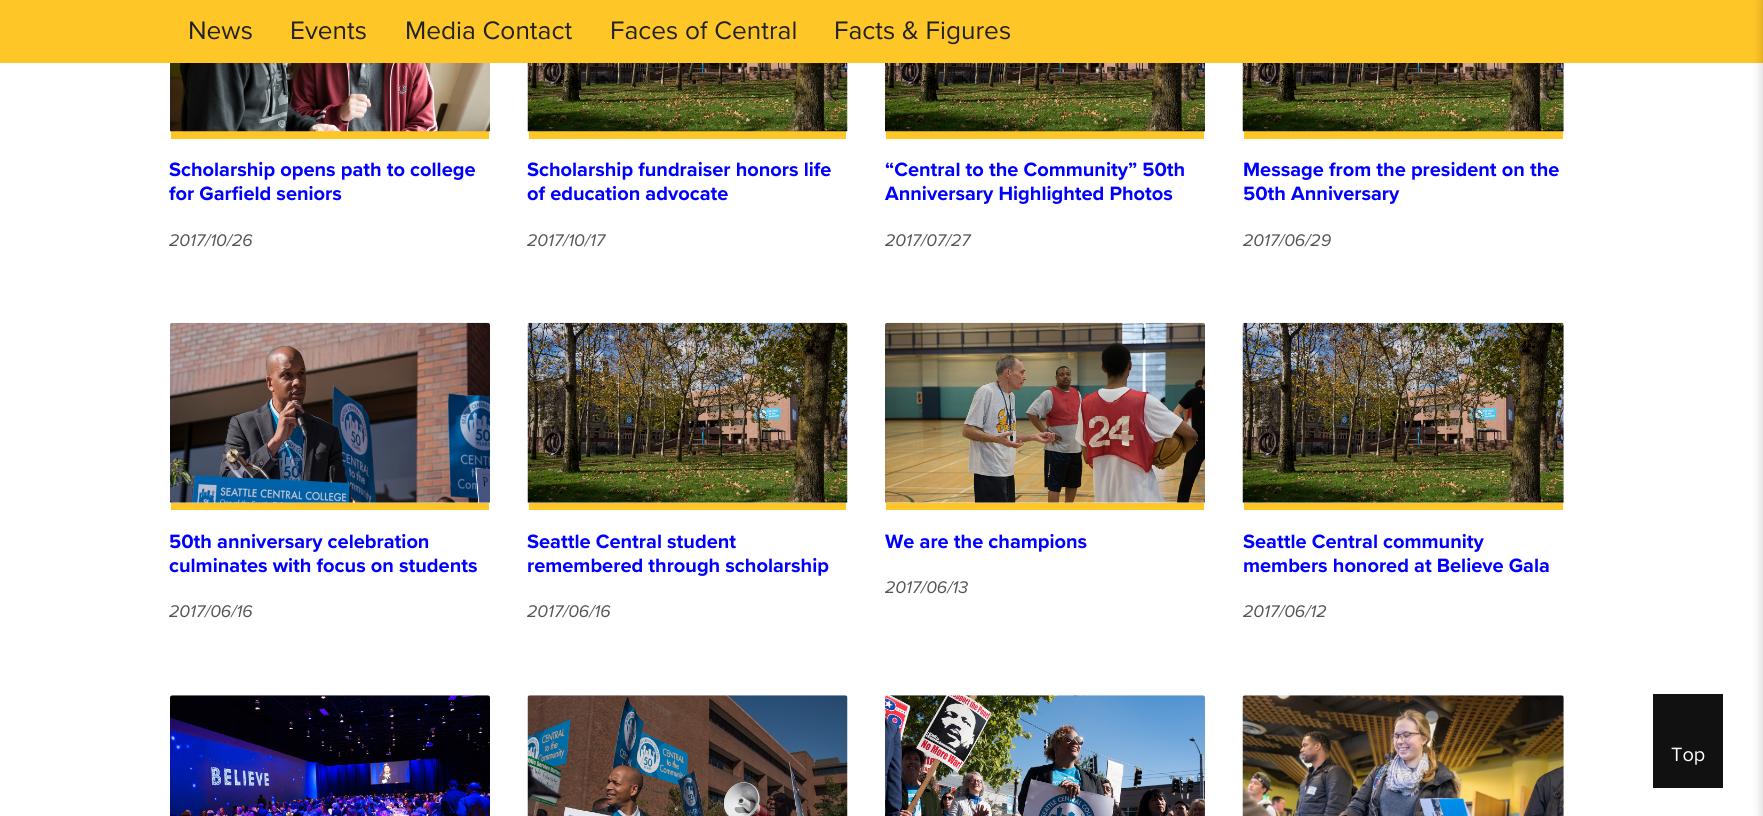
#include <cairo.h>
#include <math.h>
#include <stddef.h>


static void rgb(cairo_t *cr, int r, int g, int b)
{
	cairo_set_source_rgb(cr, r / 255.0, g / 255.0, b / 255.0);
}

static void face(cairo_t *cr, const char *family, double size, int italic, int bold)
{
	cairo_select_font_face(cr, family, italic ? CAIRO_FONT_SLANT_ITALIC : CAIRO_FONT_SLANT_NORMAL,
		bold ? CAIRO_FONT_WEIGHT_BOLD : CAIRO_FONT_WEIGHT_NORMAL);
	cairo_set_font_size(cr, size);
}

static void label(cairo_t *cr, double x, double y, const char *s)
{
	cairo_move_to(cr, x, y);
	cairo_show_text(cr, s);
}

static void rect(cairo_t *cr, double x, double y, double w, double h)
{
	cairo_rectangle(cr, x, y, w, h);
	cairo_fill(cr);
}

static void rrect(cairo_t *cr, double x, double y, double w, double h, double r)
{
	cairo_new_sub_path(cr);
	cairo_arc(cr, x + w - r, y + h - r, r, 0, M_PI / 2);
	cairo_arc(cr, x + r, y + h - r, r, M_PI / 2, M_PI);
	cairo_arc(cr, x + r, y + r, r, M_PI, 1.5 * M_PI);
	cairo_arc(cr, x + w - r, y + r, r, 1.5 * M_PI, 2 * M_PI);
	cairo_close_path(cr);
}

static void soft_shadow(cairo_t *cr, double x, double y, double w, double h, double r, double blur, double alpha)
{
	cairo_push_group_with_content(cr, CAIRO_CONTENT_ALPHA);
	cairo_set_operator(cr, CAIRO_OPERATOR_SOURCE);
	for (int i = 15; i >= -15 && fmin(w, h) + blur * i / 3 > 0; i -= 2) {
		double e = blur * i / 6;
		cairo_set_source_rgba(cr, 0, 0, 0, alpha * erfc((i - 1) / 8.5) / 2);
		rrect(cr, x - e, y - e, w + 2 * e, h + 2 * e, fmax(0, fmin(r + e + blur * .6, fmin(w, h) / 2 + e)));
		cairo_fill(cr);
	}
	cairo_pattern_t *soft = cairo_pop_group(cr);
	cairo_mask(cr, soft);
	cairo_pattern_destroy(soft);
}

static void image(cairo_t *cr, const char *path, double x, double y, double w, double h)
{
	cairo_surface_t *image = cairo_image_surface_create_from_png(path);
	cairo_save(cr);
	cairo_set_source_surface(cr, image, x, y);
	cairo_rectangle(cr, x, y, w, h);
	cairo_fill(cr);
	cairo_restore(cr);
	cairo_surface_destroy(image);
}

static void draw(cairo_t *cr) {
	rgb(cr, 255, 255, 255);
	cairo_paint(cr);
	rgb(cr, 255, 198, 40);
	rect(cr, 0, 0, 1763, 63);
	face(cr, "Proxima Nova", 26.25, 0, 0);
	rgb(cr, 34, 34, 34);
	label(cr, 188, 39, "News");
	label(cr, 290, 39, "Events");
	label(cr, 405, 39, "Media Contact");
	label(cr, 610, 39, "Faces of Central");
	label(cr, 834, 39, "Facts & Figures");
	rgb(cr, 0, 0, 0);
	soft_shadow(cr, 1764, 0, 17, 816, 0, 6, 0.25);
	rgb(cr, 255, 198, 40);
	rect(cr, 171, 131, 318, 8);
	image(cr, "image0.png", 170, 63, 320, 69);
	face(cr, "Proxima Nova", 20, 0, 1);
	rgb(cr, 0, 0, 255);
	label(cr, 169, 176, "Scholarship opens path to college");
	label(cr, 169, 200, "for Garfield seniors");
	face(cr, "Proxima Nova", 17.5, 1, 0);
	rgb(cr, 85, 85, 85);
	label(cr, 169, 246, "2017/10/26");
	rgb(cr, 255, 198, 40);
	rect(cr, 529, 131, 317, 8);
	image(cr, "image1.png", 527, 63, 321, 69);
	face(cr, "Proxima Nova", 20, 0, 1);
	rgb(cr, 0, 0, 255);
	label(cr, 527, 176, "Scholarship fundraiser honors life");
	label(cr, 527, 200, "of education advocate");
	face(cr, "Proxima Nova", 17.5, 1, 0);
	rgb(cr, 85, 85, 85);
	label(cr, 527, 246, "2017/10/17");
	rgb(cr, 255, 198, 40);
	rect(cr, 886, 131, 318, 8);
	image(cr, "image2.png", 885, 63, 320, 69);
	face(cr, "Proxima Nova", 20, 0, 1);
	rgb(cr, 0, 0, 255);
	label(cr, 885, 176, "“Central to the Community” 50th");
	label(cr, 885, 200, "Anniversary Highlighted Photos");
	face(cr, "Proxima Nova", 17.5, 1, 0);
	rgb(cr, 85, 85, 85);
	label(cr, 885, 246, "2017/07/27");
	rgb(cr, 255, 198, 40);
	rect(cr, 1244, 131, 319, 8);
	image(cr, "image3.png", 1242, 63, 322, 69);
	face(cr, "Proxima Nova", 20, 0, 1);
	rgb(cr, 0, 0, 255);
	label(cr, 1243, 176, "Message from the president on the");
	label(cr, 1243, 200, "50th Anniversary");
	face(cr, "Proxima Nova", 17.5, 1, 0);
	rgb(cr, 85, 85, 85);
	label(cr, 1243, 246, "2017/06/29");
	image(cr, "image4.png", 170, 322, 320, 181);
	rgb(cr, 255, 198, 40);
	rect(cr, 171, 503, 318, 7);
	face(cr, "Proxima Nova", 20, 0, 1);
	rgb(cr, 0, 0, 255);
	label(cr, 169, 548, "50th anniversary celebration");
	label(cr, 169, 572, "culminates with focus on students");
	face(cr, "Proxima Nova", 17.5, 1, 0);
	rgb(cr, 85, 85, 85);
	label(cr, 169, 617, "2017/06/16");
	image(cr, "image5.png", 527, 322, 321, 181);
	rgb(cr, 255, 198, 40);
	rect(cr, 529, 503, 317, 7);
	face(cr, "Proxima Nova", 20, 0, 1);
	rgb(cr, 0, 0, 255);
	label(cr, 527, 548, "Seattle Central student");
	label(cr, 527, 572, "remembered through scholarship");
	face(cr, "Proxima Nova", 17.5, 1, 0);
	rgb(cr, 85, 85, 85);
	label(cr, 527, 617, "2017/06/16");
	image(cr, "image6.png", 885, 322, 320, 181);
	rgb(cr, 255, 198, 40);
	rect(cr, 886, 503, 318, 7);
	face(cr, "Proxima Nova", 20, 0, 1);
	rgb(cr, 0, 0, 255);
	label(cr, 885, 548, "We are the champions");
	face(cr, "Proxima Nova", 17.5, 1, 0);
	rgb(cr, 85, 85, 85);
	label(cr, 885, 593, "2017/06/13");
	image(cr, "image7.png", 1242, 322, 322, 181);
	rgb(cr, 255, 198, 40);
	rect(cr, 1244, 503, 319, 7);
	face(cr, "Proxima Nova", 20, 0, 1);
	rgb(cr, 0, 0, 255);
	label(cr, 1243, 548, "Seattle Central community");
	label(cr, 1243, 572, "members honored at Believe Gala");
	face(cr, "Proxima Nova", 17.5, 1, 0);
	rgb(cr, 85, 85, 85);
	label(cr, 1243, 617, "2017/06/12");
	image(cr, "image8.png", 170, 695, 320, 121);
	image(cr, "image9.png", 527, 695, 321, 121);
	image(cr, "image10.png", 885, 695, 320, 121);
	image(cr, "image11.png", 1242, 695, 322, 121);
	rgb(cr, 17, 17, 17);
	rrect(cr, 1651.5, 692.5, 73, 97, 1);
	cairo_fill_preserve(cr);
	rgb(cr, 255, 255, 255);
	cairo_set_line_width(cr, 3);
	cairo_stroke(cr);
	face(cr, "Proxima Nova", 20, 0, 0);
	label(cr, 1671, 761, "Top");
}

int main(void) {
	cairo_surface_t *surface = cairo_image_surface_create(CAIRO_FORMAT_RGB24, 1763, 816);
	cairo_t *cr = cairo_create(surface);
	cairo_font_options_t *options = cairo_font_options_create();
	cairo_font_options_set_hint_metrics(options, CAIRO_HINT_METRICS_OFF);
	cairo_font_options_set_hint_style(options, CAIRO_HINT_STYLE_NONE);
	cairo_set_font_options(cr, options);
	cairo_set_miter_limit(cr, 4);
	draw(cr);
	cairo_surface_write_to_png(surface, "render.png");
	cairo_font_options_destroy(options);
	cairo_destroy(cr);
	cairo_surface_destroy(surface);
	return 0;
}
